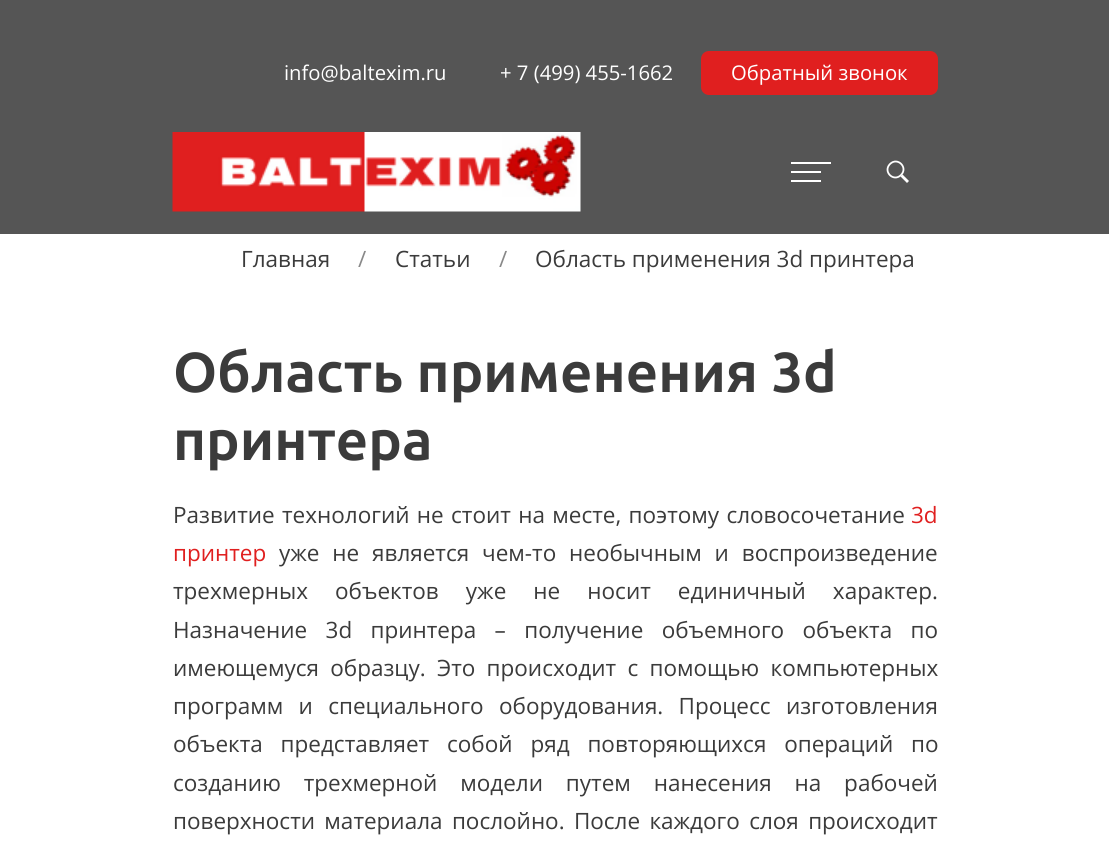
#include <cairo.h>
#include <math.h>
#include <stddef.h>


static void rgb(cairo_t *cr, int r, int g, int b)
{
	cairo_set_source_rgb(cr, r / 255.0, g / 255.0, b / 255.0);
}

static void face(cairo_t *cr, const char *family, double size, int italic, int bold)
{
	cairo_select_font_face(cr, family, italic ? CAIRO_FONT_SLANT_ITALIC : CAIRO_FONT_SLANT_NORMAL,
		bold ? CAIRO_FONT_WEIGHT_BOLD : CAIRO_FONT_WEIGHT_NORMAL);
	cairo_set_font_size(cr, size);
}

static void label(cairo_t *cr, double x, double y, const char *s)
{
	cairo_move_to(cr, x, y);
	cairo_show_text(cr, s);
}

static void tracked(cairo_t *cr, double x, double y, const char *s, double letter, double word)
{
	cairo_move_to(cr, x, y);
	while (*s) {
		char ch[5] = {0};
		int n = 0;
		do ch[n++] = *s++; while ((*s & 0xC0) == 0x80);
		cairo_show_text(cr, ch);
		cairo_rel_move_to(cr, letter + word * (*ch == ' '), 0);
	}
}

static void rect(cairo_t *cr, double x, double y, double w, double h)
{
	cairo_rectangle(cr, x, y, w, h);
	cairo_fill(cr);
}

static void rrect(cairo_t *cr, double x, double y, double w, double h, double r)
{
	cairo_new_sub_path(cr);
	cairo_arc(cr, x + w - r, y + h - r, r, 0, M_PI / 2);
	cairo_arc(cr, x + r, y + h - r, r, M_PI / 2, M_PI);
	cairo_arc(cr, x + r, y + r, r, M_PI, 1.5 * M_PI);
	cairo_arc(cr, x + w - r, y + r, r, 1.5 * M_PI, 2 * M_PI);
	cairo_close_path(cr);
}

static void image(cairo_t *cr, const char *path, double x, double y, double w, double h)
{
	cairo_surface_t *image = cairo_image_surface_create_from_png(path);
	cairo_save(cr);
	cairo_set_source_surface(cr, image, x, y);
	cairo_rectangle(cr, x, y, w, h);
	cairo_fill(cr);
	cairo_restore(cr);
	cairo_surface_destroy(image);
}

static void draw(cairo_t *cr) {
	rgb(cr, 255, 255, 255);
	cairo_paint(cr);
	rgb(cr, 85, 85, 85);
	rect(cr, 0, 0, 1109, 234);
	image(cr, "image0.png", 172, 132, 409, 80);
	rgb(cr, 255, 255, 255);
	rect(cr, 791, 162, 40, 2);
	rect(cr, 791, 171, 30, 2);
	rect(cr, 791, 180, 30, 2);
	cairo_new_path(cr);
	cairo_move_to(cr, 890, 164);
	cairo_curve_to(cr, 897.5, 156.5, 908.5, 167.5, 901, 175);
	cairo_curve_to(cr, 893.5, 182.5, 882.5, 171.5, 890, 164);
	cairo_close_path(cr);
	cairo_set_line_width(cr, 1.8);
	cairo_stroke(cr);
	cairo_new_path(cr);
	cairo_move_to(cr, 900.5, 176.5);
	cairo_line_to(cr, 902.5, 174.5);
	cairo_line_to(cr, 909, 181);
	cairo_line_to(cr, 907, 183);
	cairo_close_path(cr);
	cairo_fill(cr);
	face(cr, "Open Sans", 20.25, 0, 0);
	label(cr, 284, 80, "info@baltexim.ru");
	label(cr, 500, 80, "+ 7 (499) 455-1662");
	rgb(cr, 224, 31, 31);
	rrect(cr, 701, 51, 237, 44, 8);
	cairo_fill(cr);
	rgb(cr, 255, 255, 255);
	label(cr, 731, 80, "Обратный звонок");
	face(cr, "Open Sans", 22.5, 0, 0);
	rgb(cr, 59, 59, 59);
	label(cr, 241, 267, "Главная");
	rgb(cr, 137, 137, 137);
	label(cr, 358, 267, "/");
	rgb(cr, 59, 59, 59);
	label(cr, 395, 267, "Статьи");
	rgb(cr, 137, 137, 137);
	label(cr, 499, 267, "/");
	rgb(cr, 59, 59, 59);
	label(cr, 535, 267, "Область применения 3d принтера");
	face(cr, "Ubuntu", 56.25, 0, 1);
	label(cr, 173, 392, "Область применения 3d");
	label(cr, 173, 460, "принтера");
	face(cr, "Open Sans", 22.5, 0, 0);
	tracked(cr, 173, 523, "Развитие технологий не стоит на месте, поэтому словосочетание", 0, 1.5);
	rgb(cr, 224, 31, 31);
	label(cr, 911, 523, "3d");
	label(cr, 173, 561, "принтер");
	rgb(cr, 59, 59, 59);
	tracked(cr, 279, 561, "уже не является чем-то необычным и воспроизведение", 0, 7);
	tracked(cr, 173, 599, "трехмерных объектов уже не носит единичный характер.", 0, 21.25);
	tracked(cr, 173, 638, "Назначение 3d принтера – получение объемного объекта по", 0, 12.5);
	tracked(cr, 173, 676, "имеющемуся образцу. Это происходит с помощью компьютерных", 0, 5.5);
	tracked(cr, 173, 714, "программ и специального оборудования. Процесс изготовления", 0, 9.5);
	tracked(cr, 173, 752, "объекта представляет собой ряд повторяющихся операций по", 0, 12);
	tracked(cr, 173, 791, "созданию трехмерной модели путем нанесения на рабочей", 0, 17);
	tracked(cr, 173, 829, "поверхности материала послойно. После каждого слоя происходит", 0, 3.5);
}

int main(void) {
	cairo_surface_t *surface = cairo_image_surface_create(CAIRO_FORMAT_RGB24, 1109, 855);
	cairo_t *cr = cairo_create(surface);
	cairo_font_options_t *options = cairo_font_options_create();
	cairo_font_options_set_hint_metrics(options, CAIRO_HINT_METRICS_OFF);
	cairo_font_options_set_hint_style(options, CAIRO_HINT_STYLE_NONE);
	cairo_set_font_options(cr, options);
	cairo_set_miter_limit(cr, 4);
	draw(cr);
	cairo_surface_write_to_png(surface, "render.png");
	cairo_font_options_destroy(options);
	cairo_destroy(cr);
	cairo_surface_destroy(surface);
	return 0;
}
